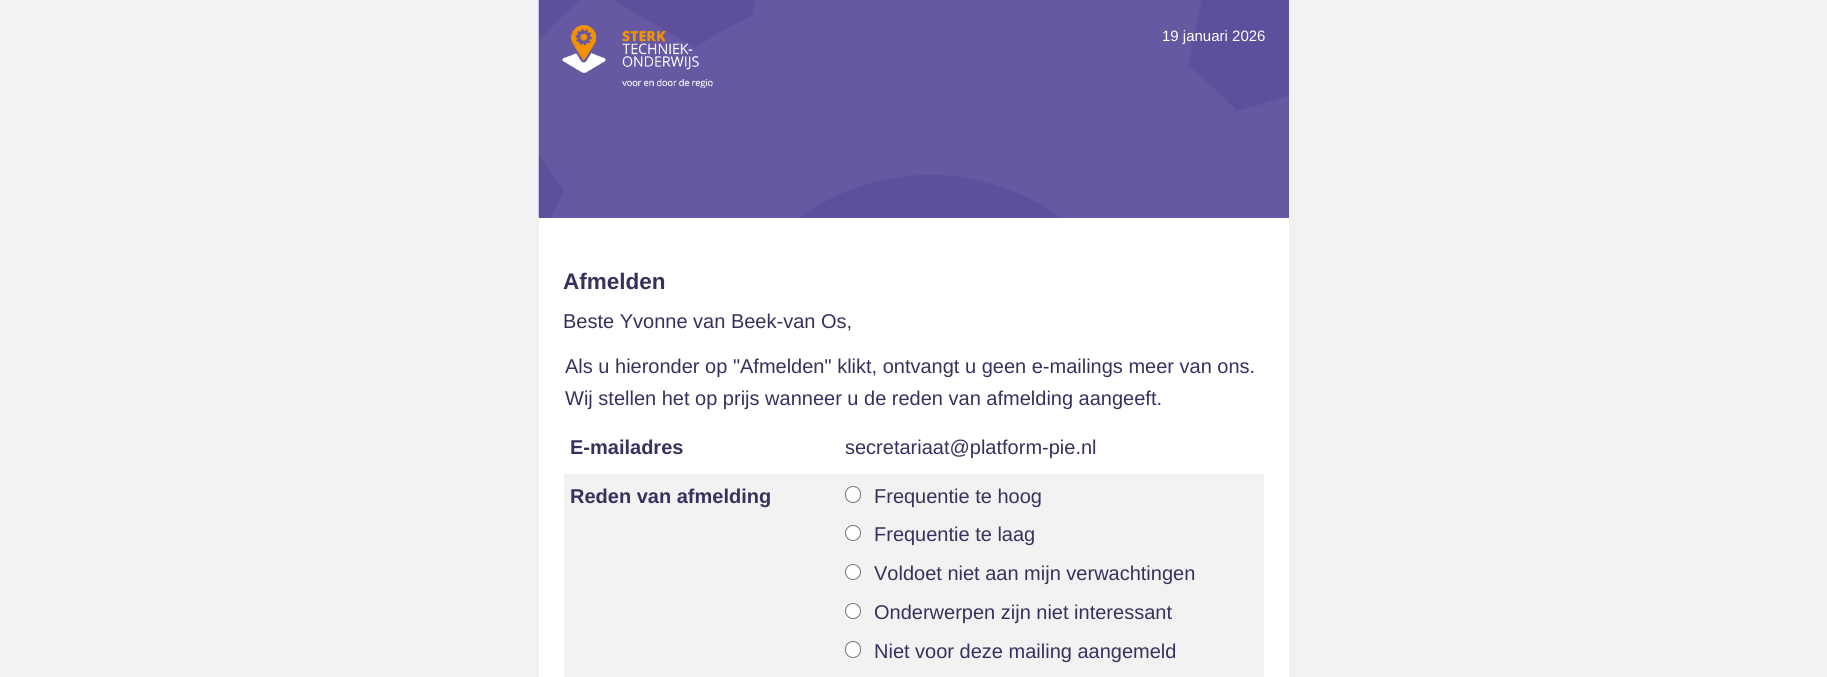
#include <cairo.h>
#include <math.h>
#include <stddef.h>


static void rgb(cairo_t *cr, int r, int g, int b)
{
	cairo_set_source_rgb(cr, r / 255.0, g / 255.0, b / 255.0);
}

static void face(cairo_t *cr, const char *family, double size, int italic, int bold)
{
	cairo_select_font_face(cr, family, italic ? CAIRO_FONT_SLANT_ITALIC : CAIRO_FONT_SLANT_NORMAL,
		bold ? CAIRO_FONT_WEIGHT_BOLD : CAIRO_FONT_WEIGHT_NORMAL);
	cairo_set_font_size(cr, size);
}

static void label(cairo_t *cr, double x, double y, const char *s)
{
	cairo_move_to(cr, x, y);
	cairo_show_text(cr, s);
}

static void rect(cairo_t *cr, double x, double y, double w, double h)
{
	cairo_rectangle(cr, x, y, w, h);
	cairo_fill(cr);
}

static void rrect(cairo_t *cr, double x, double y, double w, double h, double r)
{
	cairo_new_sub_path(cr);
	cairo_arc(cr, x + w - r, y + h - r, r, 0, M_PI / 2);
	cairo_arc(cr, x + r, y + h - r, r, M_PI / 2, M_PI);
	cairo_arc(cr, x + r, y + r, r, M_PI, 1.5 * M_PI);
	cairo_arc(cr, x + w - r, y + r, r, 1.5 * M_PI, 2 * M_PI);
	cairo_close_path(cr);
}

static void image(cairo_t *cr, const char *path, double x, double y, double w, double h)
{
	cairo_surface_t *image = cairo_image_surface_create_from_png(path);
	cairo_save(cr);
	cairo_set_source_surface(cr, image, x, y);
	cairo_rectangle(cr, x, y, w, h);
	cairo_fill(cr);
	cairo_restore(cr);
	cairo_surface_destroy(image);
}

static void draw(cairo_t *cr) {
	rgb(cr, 242, 242, 242);
	cairo_paint(cr);
	rgb(cr, 255, 255, 255);
	rect(cr, 539, 218, 750, 459);
	rgb(cr, 102, 88, 161);
	rect(cr, 539, 0, 750, 218);
	image(cr, "image0.png", 538, 0, 751, 218);
	image(cr, "image1.png", 562, 25, 151, 63);
	face(cr, "Liberation Sans", 15, 0, 0);
	rgb(cr, 255, 255, 254);
	label(cr, 1162, 41, "19 januari 2026");
	face(cr, "Liberation Sans", 22.5, 0, 1);
	rgb(cr, 57, 48, 94);
	label(cr, 563, 289, "Afmelden");
	face(cr, "Liberation Sans", 20, 0, 0);
	label(cr, 563, 328, "Beste Yvonne van Beek-van Os,");
	label(cr, 565, 373, "Als u hieronder op \"Afmelden\" klikt, ontvangt u geen e-mailings meer van ons.");
	label(cr, 565, 405, "Wij stellen het op prijs wanneer u de reden van afmelding aangeeft.");
	face(cr, "Liberation Sans", 20, 0, 1);
	label(cr, 570, 454, "E-mailadres");
	face(cr, "Liberation Sans", 20, 0, 0);
	label(cr, 845, 454, "secretariaat@platform-pie.nl");
	rgb(cr, 242, 242, 242);
	rect(cr, 564, 474, 700, 203);
	face(cr, "Liberation Sans", 20, 0, 1);
	rgb(cr, 57, 48, 94);
	label(cr, 570, 503, "Reden van afmelding");
	rgb(cr, 255, 255, 255);
	rrect(cr, 845.5, 486.5, 15, 16, 7.5);
	cairo_fill_preserve(cr);
	rgb(cr, 118, 118, 118);
	cairo_set_line_width(cr, 1);
	cairo_stroke(cr);
	face(cr, "Liberation Sans", 20, 0, 0);
	rgb(cr, 57, 48, 94);
	label(cr, 874, 503, "Frequentie te hoog");
	rgb(cr, 255, 255, 255);
	cairo_new_path(cr);
	cairo_arc(cr, 853, 533, 7.5, 0, 2 * M_PI);
	cairo_fill_preserve(cr);
	rgb(cr, 118, 118, 118);
	cairo_stroke(cr);
	rgb(cr, 57, 48, 94);
	label(cr, 874, 541, "Frequentie te laag");
	rgb(cr, 255, 255, 255);
	cairo_new_path(cr);
	cairo_arc(cr, 853, 572, 7.5, 0, 2 * M_PI);
	cairo_fill_preserve(cr);
	rgb(cr, 118, 118, 118);
	cairo_stroke(cr);
	rgb(cr, 57, 48, 94);
	label(cr, 874, 580, "Voldoet niet aan mijn verwachtingen");
	rgb(cr, 255, 255, 255);
	cairo_new_path(cr);
	cairo_arc(cr, 853, 611, 7.5, 0, 2 * M_PI);
	cairo_fill_preserve(cr);
	rgb(cr, 118, 118, 118);
	cairo_stroke(cr);
	rgb(cr, 57, 48, 94);
	label(cr, 874, 619, "Onderwerpen zijn niet interessant");
	rgb(cr, 255, 255, 255);
	rrect(cr, 845.5, 641.5, 15, 16, 7.5);
	cairo_fill_preserve(cr);
	rgb(cr, 118, 118, 118);
	cairo_stroke(cr);
	rgb(cr, 57, 48, 94);
	label(cr, 874, 658, "Niet voor deze mailing aangemeld");
}

int main(void) {
	cairo_surface_t *surface = cairo_image_surface_create(CAIRO_FORMAT_RGB24, 1827, 677);
	cairo_t *cr = cairo_create(surface);
	cairo_font_options_t *options = cairo_font_options_create();
	cairo_font_options_set_hint_metrics(options, CAIRO_HINT_METRICS_OFF);
	cairo_font_options_set_hint_style(options, CAIRO_HINT_STYLE_NONE);
	cairo_set_font_options(cr, options);
	cairo_set_miter_limit(cr, 4);
	draw(cr);
	cairo_surface_write_to_png(surface, "render.png");
	cairo_font_options_destroy(options);
	cairo_destroy(cr);
	cairo_surface_destroy(surface);
	return 0;
}
